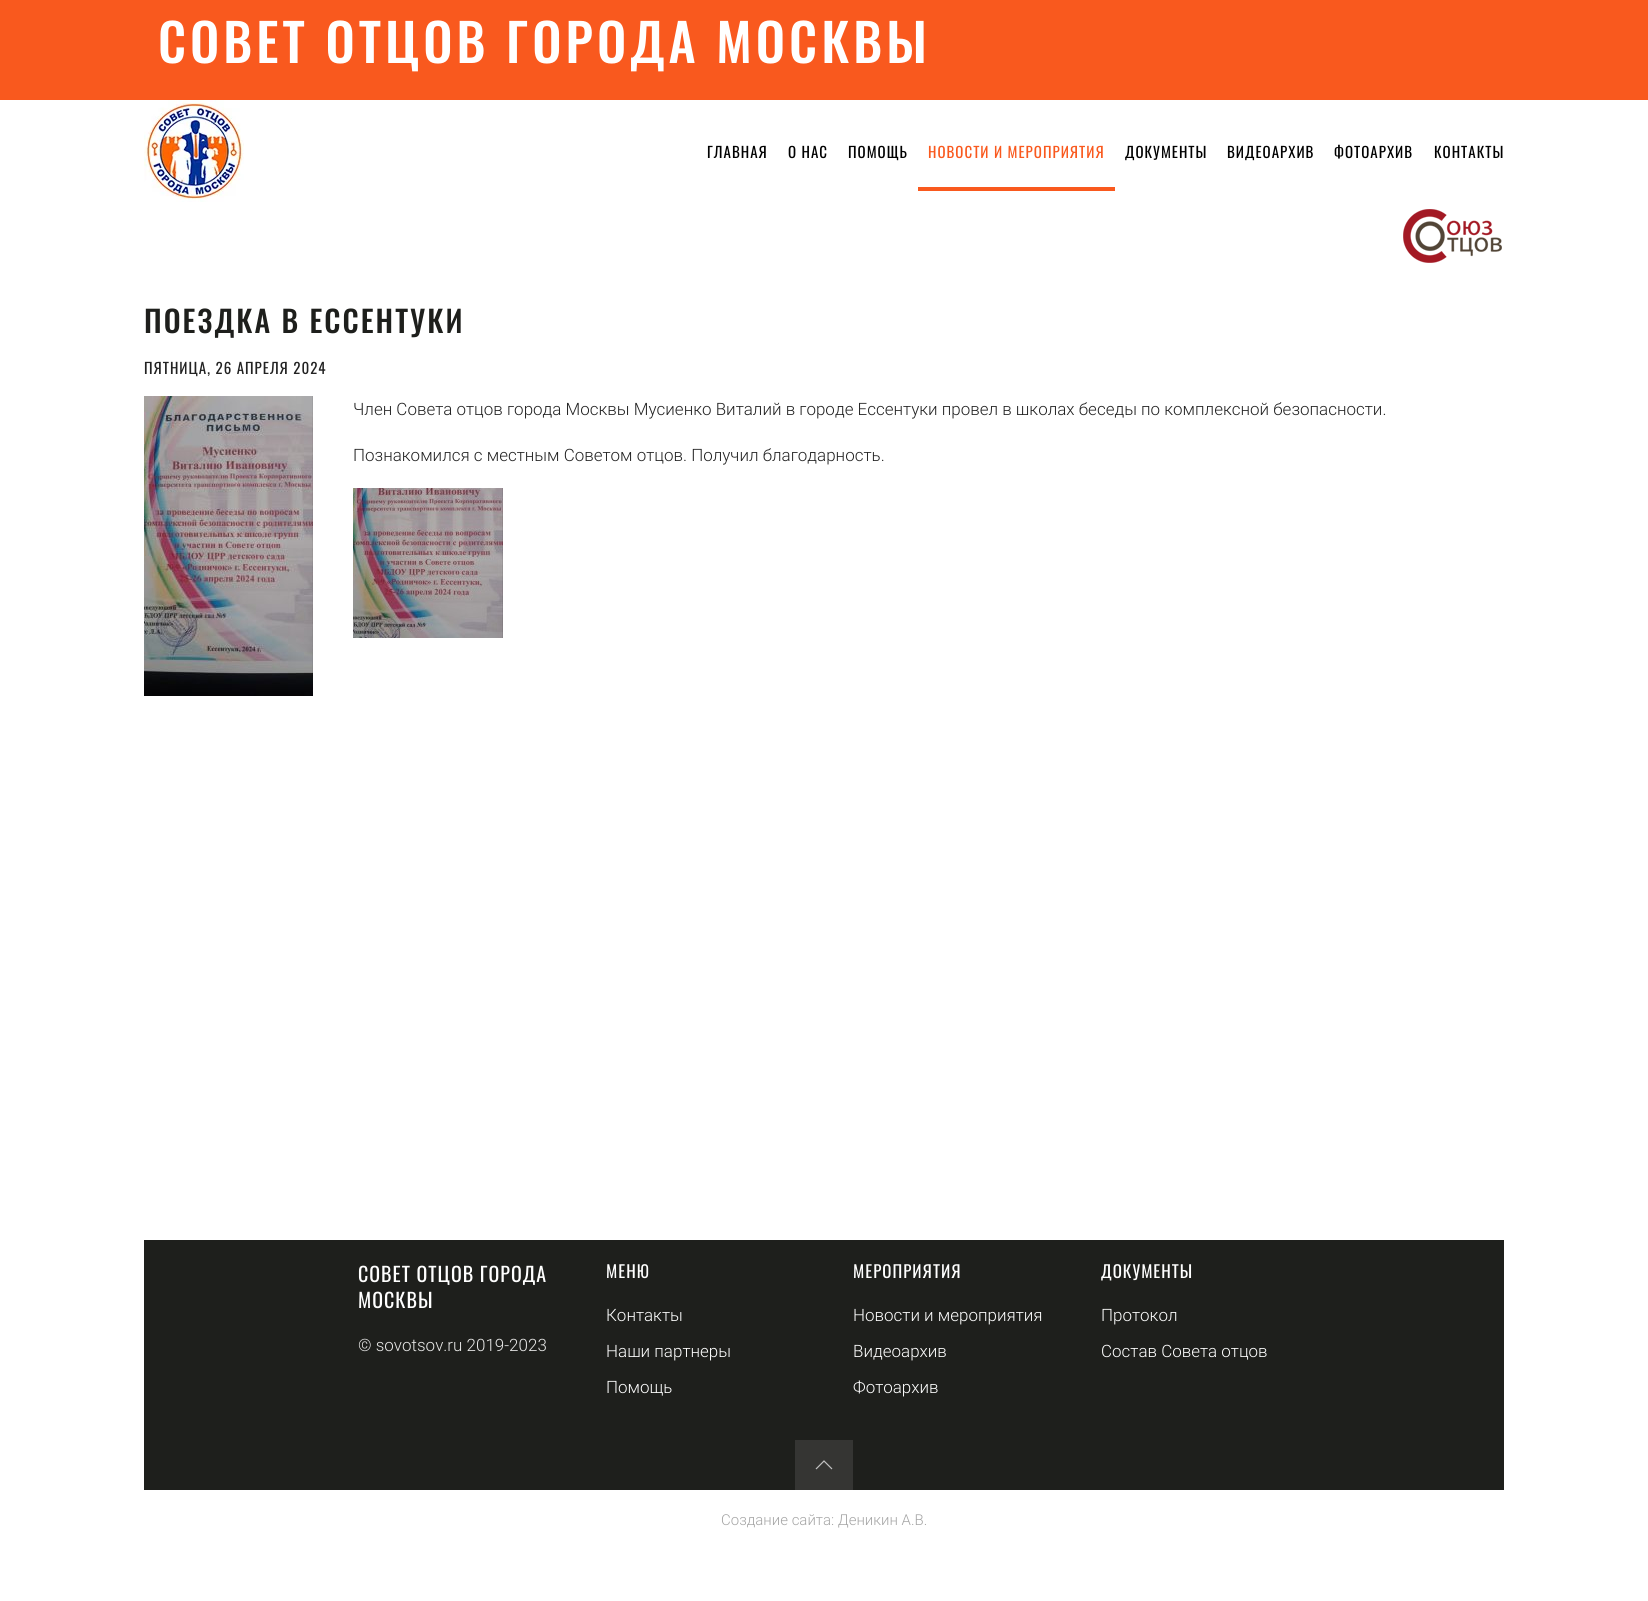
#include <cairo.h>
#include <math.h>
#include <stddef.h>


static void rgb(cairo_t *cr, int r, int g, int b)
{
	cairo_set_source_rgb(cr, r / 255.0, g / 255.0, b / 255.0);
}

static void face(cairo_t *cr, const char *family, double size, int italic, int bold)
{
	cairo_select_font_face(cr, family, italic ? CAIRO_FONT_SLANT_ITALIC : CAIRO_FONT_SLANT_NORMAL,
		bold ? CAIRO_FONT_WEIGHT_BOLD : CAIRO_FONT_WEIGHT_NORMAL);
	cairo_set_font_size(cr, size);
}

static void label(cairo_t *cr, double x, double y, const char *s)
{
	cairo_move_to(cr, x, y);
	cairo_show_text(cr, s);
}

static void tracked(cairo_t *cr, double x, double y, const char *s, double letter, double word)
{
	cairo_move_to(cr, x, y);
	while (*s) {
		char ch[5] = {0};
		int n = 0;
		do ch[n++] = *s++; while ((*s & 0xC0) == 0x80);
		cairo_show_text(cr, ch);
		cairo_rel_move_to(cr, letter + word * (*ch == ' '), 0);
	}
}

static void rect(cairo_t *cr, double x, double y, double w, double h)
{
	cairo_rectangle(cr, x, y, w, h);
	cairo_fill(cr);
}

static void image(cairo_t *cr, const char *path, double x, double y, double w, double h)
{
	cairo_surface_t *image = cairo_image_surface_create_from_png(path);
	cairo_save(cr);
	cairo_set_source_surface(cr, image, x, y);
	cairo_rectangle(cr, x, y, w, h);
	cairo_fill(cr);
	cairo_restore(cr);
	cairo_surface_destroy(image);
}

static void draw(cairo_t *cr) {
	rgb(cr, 255, 255, 255);
	cairo_paint(cr);
	rgb(cr, 249, 89, 30);
	rect(cr, 0, 0, 1648, 100);
	face(cr, "Oswald Medium", 52, 0, 0);
	rgb(cr, 255, 255, 255);
	tracked(cr, 158, 63, "СОВЕТ ОТЦОВ ГОРОДА МОСКВЫ", 4, 0);
	image(cr, "image0.png", 144, 100, 100, 102);
	face(cr, "Oswald", 15, 0, 0);
	rgb(cr, 0, 0, 0);
	tracked(cr, 707, 158, "ГЛАВНАЯ", 1, 0);
	tracked(cr, 788, 158, "О НАС", 1, 0);
	tracked(cr, 848, 158, "ПОМОЩЬ", 1, 0);
	rgb(cr, 249, 89, 30);
	tracked(cr, 928, 158, "НОВОСТИ И МЕРОПРИЯТИЯ", 1, 0);
	rect(cr, 918, 187, 197, 4);
	rgb(cr, 0, 0, 0);
	tracked(cr, 1125, 158, "ДОКУМЕНТЫ", 1, 0);
	tracked(cr, 1227, 158, "ВИДЕОАРХИВ", 1, 0);
	tracked(cr, 1334, 158, "ФОТОАРХИВ", 1, 0);
	tracked(cr, 1434, 158, "КОНТАКТЫ", 1, 0);
	image(cr, "image1.png", 1403, 209, 99, 54);
	face(cr, "Oswald Medium", 30, 0, 0);
	rgb(cr, 30, 31, 28);
	tracked(cr, 144, 333, "ПОЕЗДКА В ЕССЕНТУКИ", 2, 0);
	face(cr, "Oswald", 15, 0, 0);
	rgb(cr, 34, 34, 34);
	tracked(cr, 144, 374, "ПЯТНИЦА, 26 АПРЕЛЯ 2024", 1, 0);
	image(cr, "image2.png", 144, 396, 169, 300);
	face(cr, "Roboto Light", 17, 0, 0);
	label(cr, 353, 415, "Член Совета отцов города Москвы Мусиенко Виталий в городе Ессентуки провел в школах беседы по комплексной безопасности.");
	label(cr, 353, 461, "Познакомился с местным Советом отцов. Получил благодарность.");
	image(cr, "image3.png", 353, 488, 150, 150);
	rgb(cr, 30, 31, 28);
	rect(cr, 144, 1240, 1360, 250);
	face(cr, "Oswald", 20, 0, 0);
	rgb(cr, 255, 255, 255);
	tracked(cr, 358, 1282, "СОВЕТ ОТЦОВ ГОРОДА", 1, 0);
	tracked(cr, 358, 1308, "МОСКВЫ", 1, 0);
	face(cr, "Roboto Light", 17, 0, 0);
	rgb(cr, 233, 233, 232);
	label(cr, 358, 1351, "© sovotsov.ru 2019-2023");
	face(cr, "Oswald", 17, 0, 0);
	rgb(cr, 255, 255, 255);
	tracked(cr, 606, 1278, "МЕНЮ", 1, 0);
	face(cr, "Roboto Light", 17, 0, 0);
	label(cr, 606, 1321, "Контакты");
	label(cr, 606, 1357, "Наши партнеры");
	label(cr, 606, 1393, "Помощь");
	face(cr, "Oswald", 17, 0, 0);
	tracked(cr, 853, 1278, "МЕРОПРИЯТИЯ", 1, 0);
	face(cr, "Roboto Light", 17, 0, 0);
	label(cr, 853, 1321, "Новости и мероприятия");
	label(cr, 853, 1357, "Видеоархив");
	label(cr, 853, 1393, "Фотоархив");
	face(cr, "Oswald", 17, 0, 0);
	tracked(cr, 1101, 1278, "ДОКУМЕНТЫ", 1, 0);
	face(cr, "Roboto Light", 17, 0, 0);
	label(cr, 1101, 1321, "Протокол");
	label(cr, 1101, 1357, "Состав Совета отцов");
	rgb(cr, 53, 53, 51);
	rect(cr, 795, 1440, 58, 50);
	cairo_new_path(cr);
	cairo_move_to(cr, 816, 1469);
	cairo_line_to(cr, 824, 1461);
	cairo_line_to(cr, 832, 1469);
	rgb(cr, 194, 194, 194);
	cairo_set_line_width(cr, 1.2);
	cairo_stroke(cr);
	face(cr, "Roboto Light", 15, 0, 0);
	rgb(cr, 165, 165, 165);
	label(cr, 721, 1525, "Создание сайта: Деникин А.В.");
}

int main(void) {
	cairo_surface_t *surface = cairo_image_surface_create(CAIRO_FORMAT_RGB24, 1648, 1601);
	cairo_t *cr = cairo_create(surface);
	cairo_font_options_t *options = cairo_font_options_create();
	cairo_font_options_set_hint_metrics(options, CAIRO_HINT_METRICS_OFF);
	cairo_font_options_set_hint_style(options, CAIRO_HINT_STYLE_NONE);
	cairo_set_font_options(cr, options);
	cairo_set_miter_limit(cr, 4);
	draw(cr);
	cairo_surface_write_to_png(surface, "render.png");
	cairo_font_options_destroy(options);
	cairo_destroy(cr);
	cairo_surface_destroy(surface);
	return 0;
}
